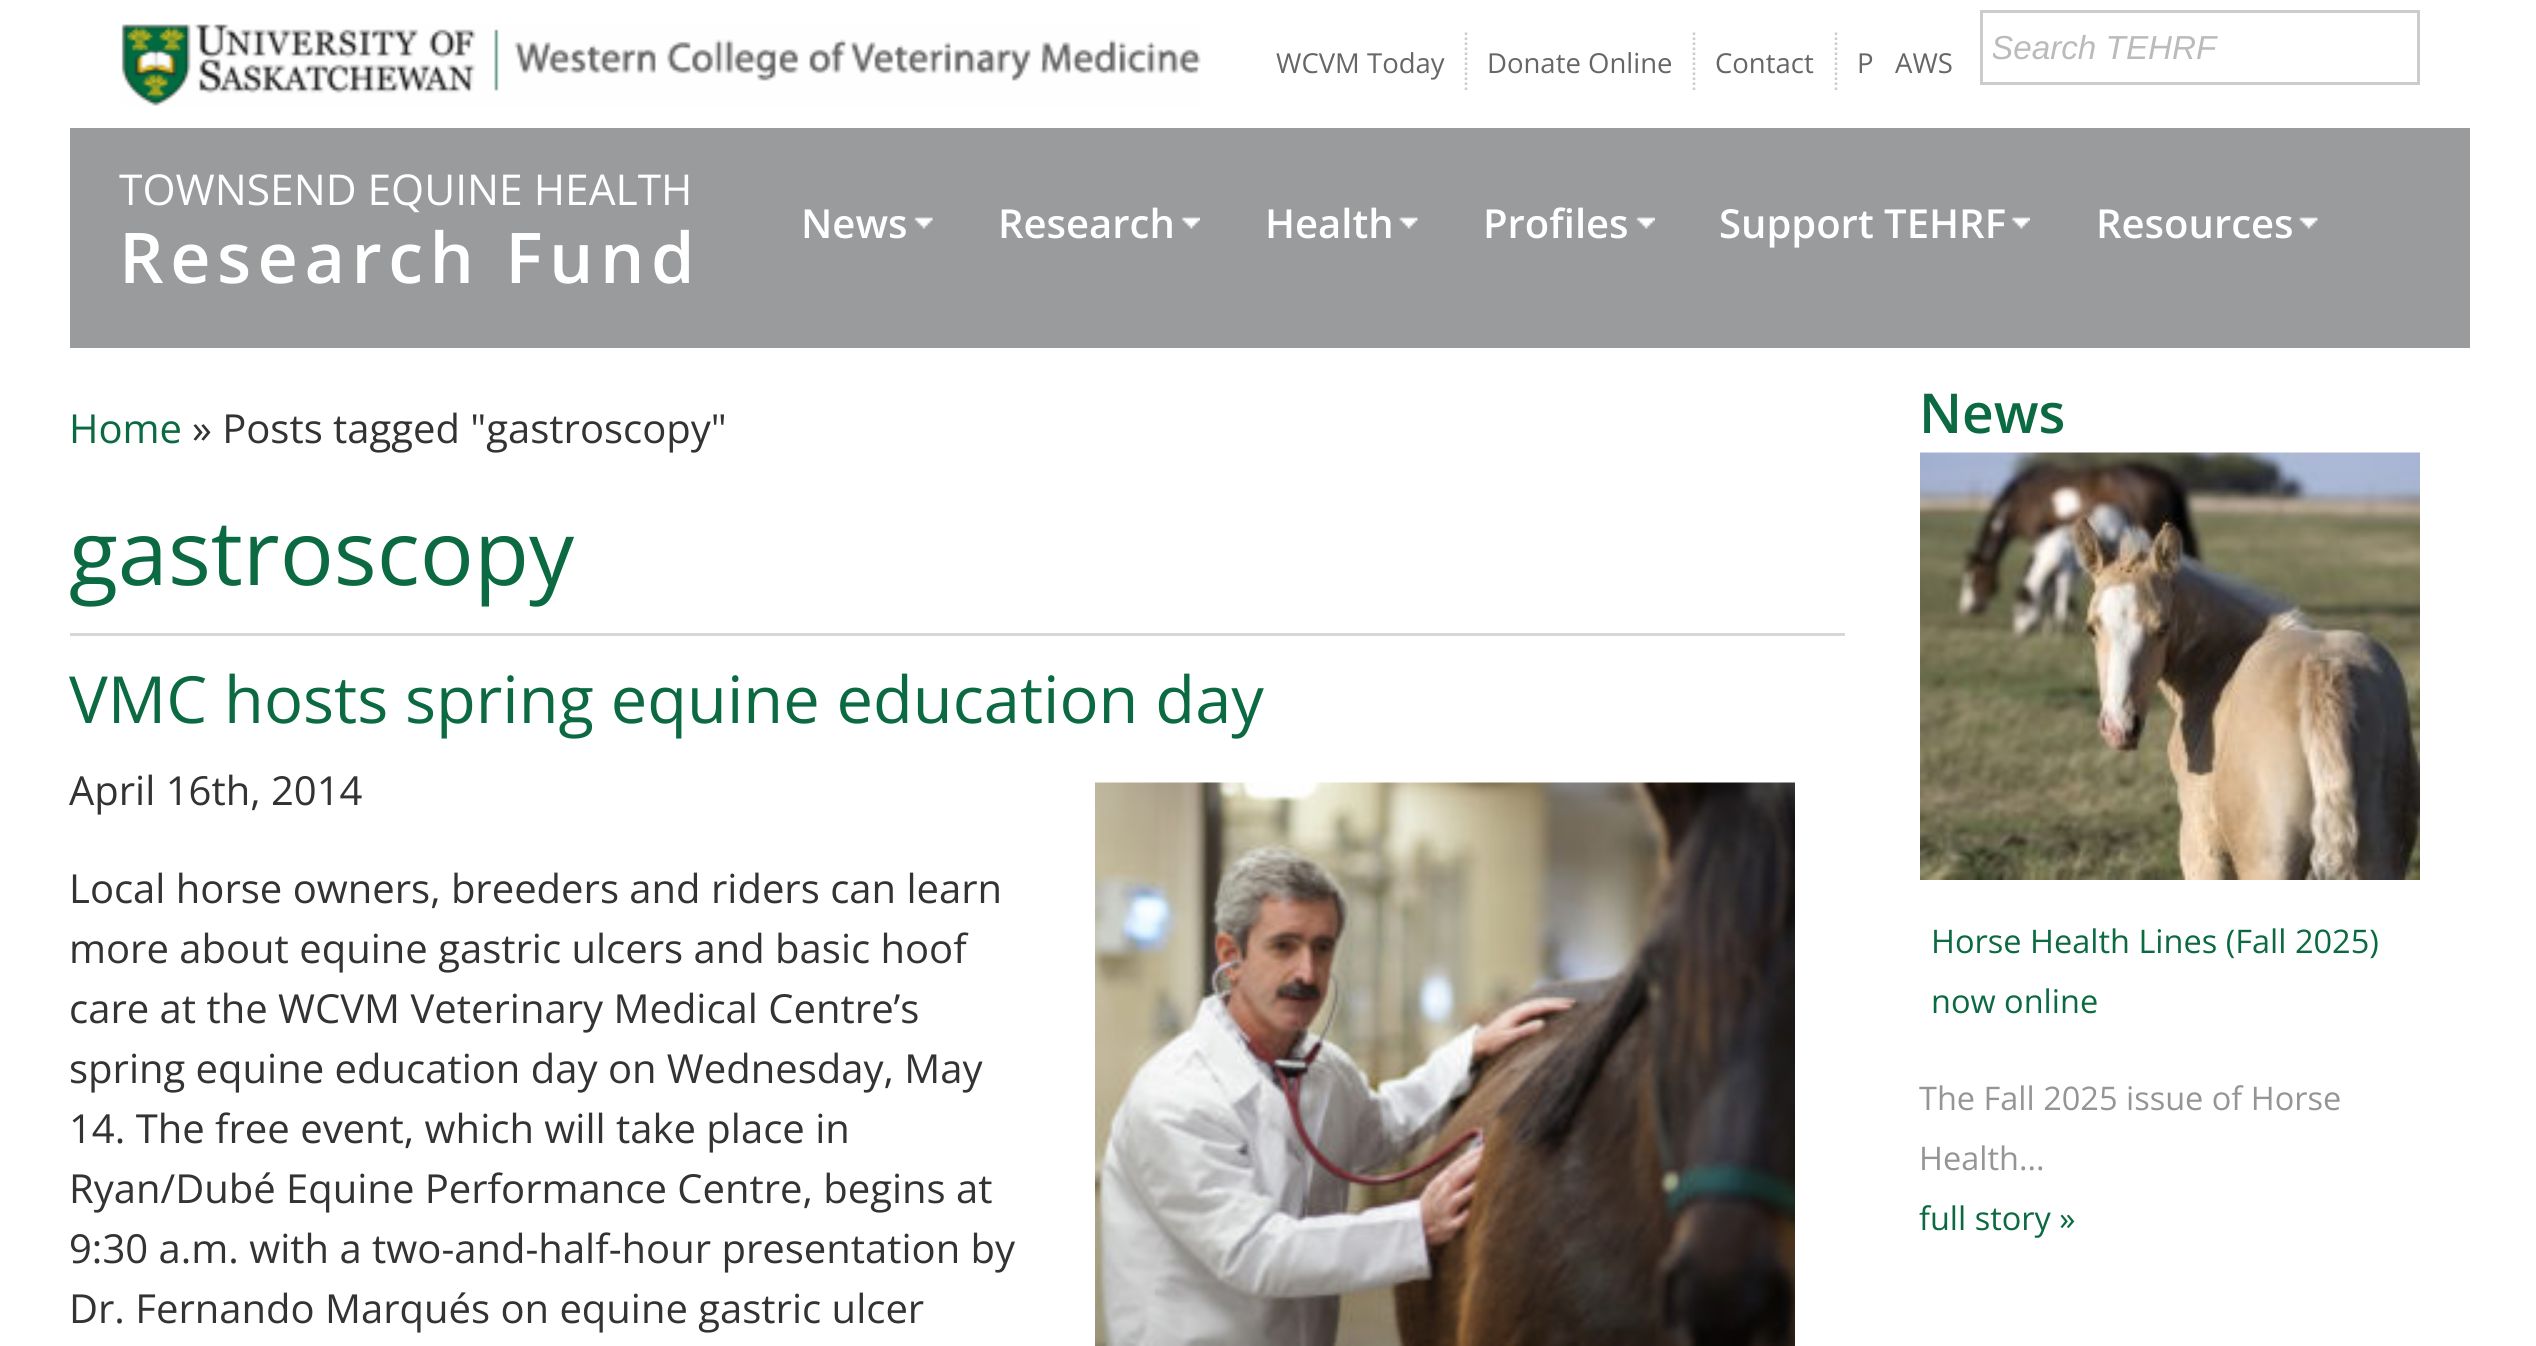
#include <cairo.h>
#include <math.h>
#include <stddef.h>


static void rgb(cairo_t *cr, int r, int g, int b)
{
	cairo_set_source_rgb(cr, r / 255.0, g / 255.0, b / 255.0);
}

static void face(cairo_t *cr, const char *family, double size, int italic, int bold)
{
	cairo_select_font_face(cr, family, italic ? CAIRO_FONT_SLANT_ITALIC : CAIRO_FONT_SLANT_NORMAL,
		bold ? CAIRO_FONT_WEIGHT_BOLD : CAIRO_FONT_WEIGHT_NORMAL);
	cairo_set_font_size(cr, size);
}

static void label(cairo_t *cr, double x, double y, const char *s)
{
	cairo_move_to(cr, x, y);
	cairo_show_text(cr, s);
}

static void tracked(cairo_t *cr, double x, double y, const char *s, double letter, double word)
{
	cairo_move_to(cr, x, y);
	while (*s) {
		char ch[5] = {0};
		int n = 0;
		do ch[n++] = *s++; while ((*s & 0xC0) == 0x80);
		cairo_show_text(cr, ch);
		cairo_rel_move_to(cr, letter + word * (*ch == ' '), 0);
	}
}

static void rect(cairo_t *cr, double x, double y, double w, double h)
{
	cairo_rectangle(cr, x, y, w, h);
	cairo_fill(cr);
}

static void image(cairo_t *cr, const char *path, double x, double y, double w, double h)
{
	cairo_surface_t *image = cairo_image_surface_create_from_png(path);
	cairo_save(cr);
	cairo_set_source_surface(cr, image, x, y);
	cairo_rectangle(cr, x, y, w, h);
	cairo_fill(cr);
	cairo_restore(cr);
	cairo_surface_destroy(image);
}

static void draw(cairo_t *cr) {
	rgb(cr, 255, 255, 255);
	cairo_paint(cr);
	image(cr, "image0.png", 121, 24, 1080, 82);
	cairo_rectangle(cr, 1981.5, 11.5, 437, 72);
	rgb(cr, 204, 204, 204);
	cairo_set_line_width(cr, 3);
	cairo_stroke(cr);
	cairo_save(cr);
	cairo_rectangle(cr, 1993, 30, 350, 38);
	cairo_clip(cr);
	face(cr, "Liberation Sans", 33.25, 1, 0);
	rgb(cr, 187, 187, 187);
	label(cr, 1991, 59, "Search TEHRF");
	cairo_restore(cr);
	cairo_new_path(cr);
	cairo_move_to(cr, 1466, 32.5);
	cairo_line_to(cr, 1466, 92.5);
	cairo_set_line_width(cr, 2.5);
	cairo_set_dash(cr, (double[]){2.5, 2.5}, 2, 0);
	cairo_stroke(cr);
	face(cr, "Open Sans", 27.5, 0, 0);
	rgb(cr, 102, 102, 102);
	label(cr, 1276, 73, "WCVM Today");
	cairo_new_path(cr);
	cairo_move_to(cr, 1694, 32.5);
	cairo_line_to(cr, 1694, 92.5);
	rgb(cr, 204, 204, 204);
	cairo_stroke(cr);
	rgb(cr, 102, 102, 102);
	label(cr, 1487, 73, "Donate Online");
	cairo_new_path(cr);
	cairo_move_to(cr, 1836, 32.5);
	cairo_line_to(cr, 1836, 92.5);
	rgb(cr, 204, 204, 204);
	cairo_stroke(cr);
	rgb(cr, 102, 102, 102);
	label(cr, 1715, 73, "Contact");
	label(cr, 1857, 73, "P");
	label(cr, 1895, 73, "AWS");
	rgb(cr, 154, 155, 157);
	rect(cr, 70, 128, 2400, 220);
	face(cr, "Open Sans", 42.5, 0, 0);
	rgb(cr, 255, 255, 255);
	label(cr, 119, 205, "TOWNSEND EQUINE HEALTH");
	face(cr, "Open Sans SemiBold", 70, 0, 0);
	tracked(cr, 119, 283, "Research Fund", 6.5, 0);
	image(cr, "image1.png", 914, 217, 19, 12);
	face(cr, "Open Sans SemiBold", 40, 0, 0);
	label(cr, 801, 238, "News");
	image(cr, "image2.png", 1181, 217, 19, 12);
	label(cr, 998, 238, "Research");
	image(cr, "image3.png", 1399, 217, 19, 12);
	label(cr, 1265, 238, "Health");
	image(cr, "image4.png", 1636, 217, 19, 12);
	label(cr, 1483, 238, "Profiles");
	image(cr, "image5.png", 2011, 217, 19, 12);
	label(cr, 1719, 238, "Support TEHRF");
	image(cr, "image6.png", 2299, 217, 19, 12);
	label(cr, 2096, 238, "Resources");
	face(cr, "Open Sans", 40, 0, 0);
	rgb(cr, 11, 106, 65);
	label(cr, 69, 443, "Home");
	rgb(cr, 51, 51, 51);
	label(cr, 192, 443, "» Posts tagged \"gastroscopy\"");
	rgb(cr, 215, 215, 215);
	rect(cr, 70, 633, 1775, 3);
	face(cr, "Open Sans", 90, 0, 0);
	rgb(cr, 11, 106, 65);
	label(cr, 69, 585, "gastroscopy");
	face(cr, "Open Sans", 65, 0, 0);
	label(cr, 69, 723, "VMC hosts spring equine education day");
	face(cr, "Open Sans", 40, 0, 0);
	rgb(cr, 51, 51, 51);
	label(cr, 69, 805, "April 16th, 2014");
	label(cr, 69, 903, "Local horse owners, breeders and riders can learn");
	label(cr, 69, 963, "more about equine gastric ulcers and basic hoof");
	label(cr, 69, 1023, "care at the WCVM Veterinary Medical Centre’s");
	label(cr, 69, 1083, "spring equine education day on Wednesday, May");
	label(cr, 69, 1143, "14. The free event, which will take place in");
	label(cr, 69, 1203, "Ryan/Dubé Equine Performance Centre, begins at");
	label(cr, 69, 1263, "9:30 a.m. with a two-and-half-hour presentation by");
	label(cr, 69, 1323, "Dr. Fernando Marqués on equine gastric ulcer");
	image(cr, "image7.png", 1095, 782, 700, 564);
	face(cr, "Open Sans SemiBold", 55, 0, 0);
	rgb(cr, 11, 106, 65);
	label(cr, 1919, 433, "News");
	image(cr, "image8.png", 1920, 452, 500, 428);
	face(cr, "Open Sans", 32.5, 0, 0);
	label(cr, 1931, 953, "Horse Health Lines (Fall 2025)");
	label(cr, 1931, 1013, "now online");
	rgb(cr, 149, 149, 149);
	label(cr, 1919, 1110, "The Fall 2025 issue of Horse");
	label(cr, 1919, 1170, "Health...");
	rgb(cr, 11, 106, 65);
	label(cr, 1919, 1230, "full story »");
}

int main(void) {
	cairo_surface_t *surface = cairo_image_surface_create(CAIRO_FORMAT_RGB24, 2536, 1346);
	cairo_t *cr = cairo_create(surface);
	cairo_font_options_t *options = cairo_font_options_create();
	cairo_font_options_set_hint_metrics(options, CAIRO_HINT_METRICS_OFF);
	cairo_font_options_set_hint_style(options, CAIRO_HINT_STYLE_NONE);
	cairo_set_font_options(cr, options);
	cairo_set_miter_limit(cr, 4);
	draw(cr);
	cairo_surface_write_to_png(surface, "render.png");
	cairo_font_options_destroy(options);
	cairo_destroy(cr);
	cairo_surface_destroy(surface);
	return 0;
}
